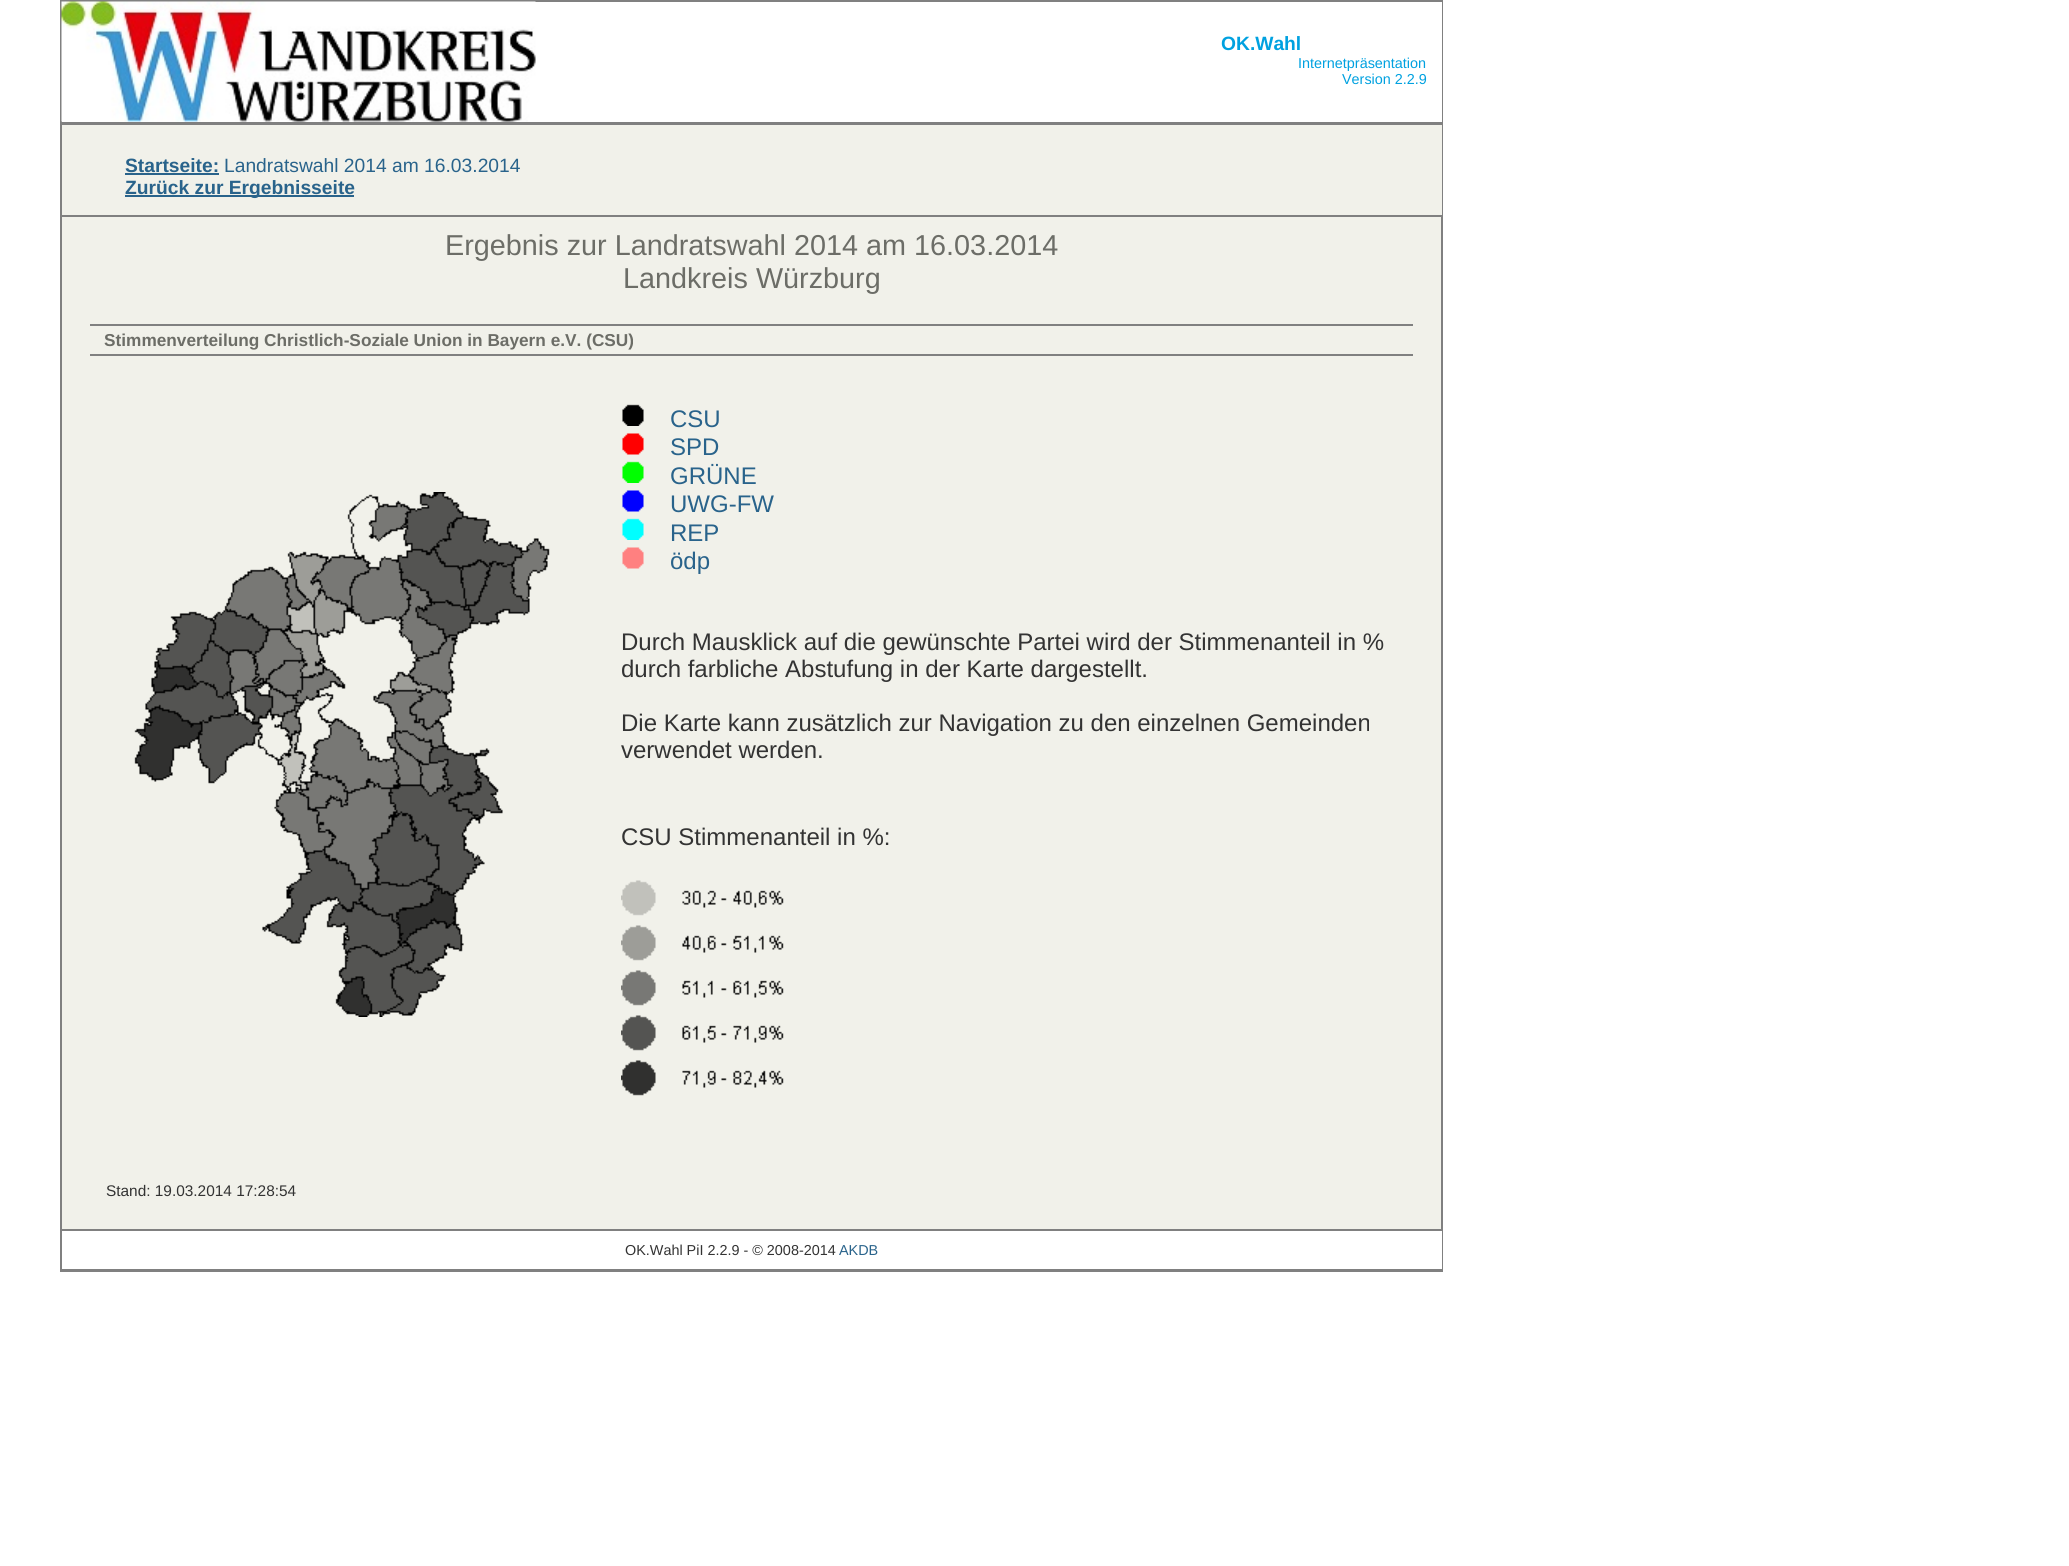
#include <cairo.h>
#include <math.h>
#include <stddef.h>


static void rgb(cairo_t *cr, int r, int g, int b)
{
	cairo_set_source_rgb(cr, r / 255.0, g / 255.0, b / 255.0);
}

static void face(cairo_t *cr, const char *family, double size, int italic, int bold)
{
	cairo_select_font_face(cr, family, italic ? CAIRO_FONT_SLANT_ITALIC : CAIRO_FONT_SLANT_NORMAL,
		bold ? CAIRO_FONT_WEIGHT_BOLD : CAIRO_FONT_WEIGHT_NORMAL);
	cairo_set_font_size(cr, size);
}

static void label(cairo_t *cr, double x, double y, const char *s)
{
	cairo_move_to(cr, x, y);
	cairo_show_text(cr, s);
}

static void rect(cairo_t *cr, double x, double y, double w, double h)
{
	cairo_rectangle(cr, x, y, w, h);
	cairo_fill(cr);
}

static void image(cairo_t *cr, const char *path, double x, double y, double w, double h)
{
	cairo_surface_t *image = cairo_image_surface_create_from_png(path);
	cairo_save(cr);
	cairo_set_source_surface(cr, image, x, y);
	cairo_rectangle(cr, x, y, w, h);
	cairo_fill(cr);
	cairo_restore(cr);
	cairo_surface_destroy(image);
}

static void draw(cairo_t *cr) {
	rgb(cr, 255, 255, 255);
	cairo_paint(cr);
	rgb(cr, 241, 241, 234);
	rect(cr, 62, 217, 1379, 1012);
	cairo_rectangle(cr, 61, 1, 1381, 1270);
	rgb(cr, 128, 128, 128);
	cairo_stroke(cr);
	rgb(cr, 255, 255, 255);
	rect(cr, 1441, 2, 1, 120);
	image(cr, "image0.png", 61, 1, 475, 121);
	face(cr, "Liberation Sans", 19.25, 0, 1);
	rgb(cr, 0, 161, 224);
	label(cr, 1221, 50, "OK.Wahl");
	face(cr, "Liberation Sans", 14.4, 0, 0);
	label(cr, 1298, 68, "Internetpräsentation");
	label(cr, 1342, 84, "Version 2.2.9");
	rgb(cr, 241, 241, 234);
	rect(cr, 62, 125, 1380, 90);
	rgb(cr, 128, 128, 128);
	rect(cr, 62, 122, 1380, 3);
	rect(cr, 62, 215, 1380, 2);
	face(cr, "Liberation Sans", 19.25, 0, 1);
	rgb(cr, 41, 99, 139);
	label(cr, 125, 172, "Startseite:");
	rect(cr, 125, 173, 94, 2);
	face(cr, "Liberation Sans", 19.25, 0, 0);
	label(cr, 224, 172, "Landratswahl 2014 am 16.03.2014");
	rect(cr, 125, 195, 229, 2);
	face(cr, "Liberation Sans", 19.25, 0, 1);
	label(cr, 125, 194, "Zurück zur Ergebnisseite");
	face(cr, "Liberation Sans", 28.8, 0, 0);
	rgb(cr, 108, 109, 103);
	label(cr, 445, 255, "Ergebnis zur Landratswahl 2014 am 16.03.2014");
	label(cr, 623, 288, "Landkreis Würzburg");
	rgb(cr, 128, 128, 128);
	rect(cr, 90, 324, 1323, 2);
	rect(cr, 90, 354, 1323, 2);
	face(cr, "Liberation Sans", 17.25, 0, 1);
	rgb(cr, 108, 109, 103);
	label(cr, 104, 346, "Stimmenverteilung Christlich-Soziale Union in Bayern e.V. (CSU)");
	image(cr, "image1.png", 134, 492, 416, 525);
	image(cr, "image2.png", 622, 404, 22, 22);
	face(cr, "Liberation Sans", 24, 0, 0);
	rgb(cr, 41, 99, 139);
	label(cr, 670, 427, "CSU");
	image(cr, "image3.png", 622, 433, 22, 22);
	label(cr, 670, 455, "SPD");
	image(cr, "image4.png", 622, 461, 22, 22);
	label(cr, 670, 484, "GRÜNE");
	image(cr, "image5.png", 622, 490, 22, 22);
	label(cr, 670, 512, "UWG-FW");
	image(cr, "image6.png", 622, 518, 22, 22);
	label(cr, 670, 541, "REP");
	image(cr, "image7.png", 622, 547, 22, 22);
	label(cr, 670, 569, "ödp");
	rgb(cr, 51, 51, 51);
	label(cr, 621, 650, "Durch Mausklick auf die gewünschte Partei wird der Stimmenanteil in %");
	label(cr, 621, 677, "durch farbliche Abstufung in der Karte dargestellt.");
	label(cr, 621, 731, "Die Karte kann zusätzlich zur Navigation zu den einzelnen Gemeinden");
	label(cr, 621, 758, "verwendet werden.");
	label(cr, 621, 845, "CSU Stimmenanteil in %:");
	image(cr, "image8.png", 621, 880, 163, 216);
	face(cr, "Liberation Sans", 15.4, 0, 0);
	label(cr, 106, 1196, "Stand: 19.03.2014 17:28:54");
	rgb(cr, 255, 255, 255);
	rect(cr, 1441, 1231, 1, 38);
	rgb(cr, 128, 128, 128);
	rect(cr, 62, 1229, 1380, 2);
	rect(cr, 62, 1269, 1380, 1);
	face(cr, "Liberation Sans", 14.4, 0, 0);
	rgb(cr, 51, 51, 51);
	label(cr, 625, 1255, "OK.Wahl PiI 2.2.9 - © 2008-2014");
	rgb(cr, 41, 99, 139);
	label(cr, 839, 1255, "AKDB");
}

int main(void) {
	cairo_surface_t *surface = cairo_image_surface_create(CAIRO_FORMAT_RGB24, 2069, 1566);
	cairo_t *cr = cairo_create(surface);
	cairo_font_options_t *options = cairo_font_options_create();
	cairo_font_options_set_hint_metrics(options, CAIRO_HINT_METRICS_OFF);
	cairo_font_options_set_hint_style(options, CAIRO_HINT_STYLE_NONE);
	cairo_set_font_options(cr, options);
	cairo_set_miter_limit(cr, 4);
	draw(cr);
	cairo_surface_write_to_png(surface, "render.png");
	cairo_font_options_destroy(options);
	cairo_destroy(cr);
	cairo_surface_destroy(surface);
	return 0;
}
